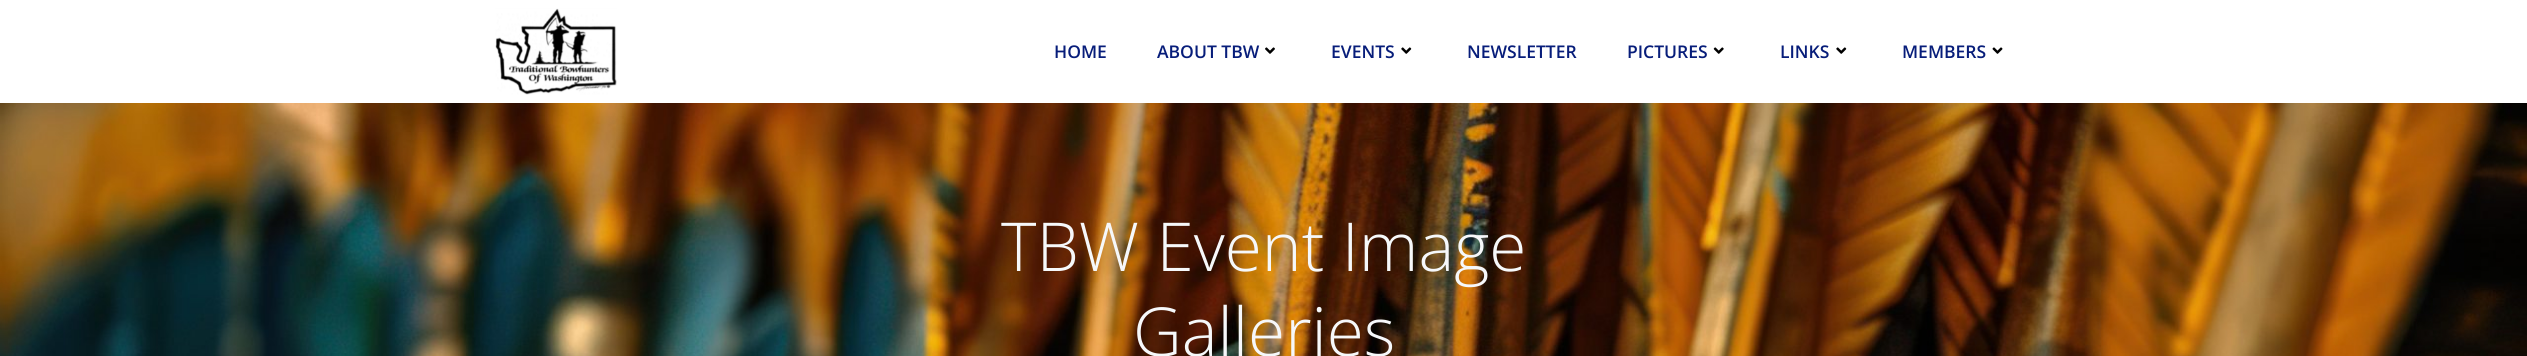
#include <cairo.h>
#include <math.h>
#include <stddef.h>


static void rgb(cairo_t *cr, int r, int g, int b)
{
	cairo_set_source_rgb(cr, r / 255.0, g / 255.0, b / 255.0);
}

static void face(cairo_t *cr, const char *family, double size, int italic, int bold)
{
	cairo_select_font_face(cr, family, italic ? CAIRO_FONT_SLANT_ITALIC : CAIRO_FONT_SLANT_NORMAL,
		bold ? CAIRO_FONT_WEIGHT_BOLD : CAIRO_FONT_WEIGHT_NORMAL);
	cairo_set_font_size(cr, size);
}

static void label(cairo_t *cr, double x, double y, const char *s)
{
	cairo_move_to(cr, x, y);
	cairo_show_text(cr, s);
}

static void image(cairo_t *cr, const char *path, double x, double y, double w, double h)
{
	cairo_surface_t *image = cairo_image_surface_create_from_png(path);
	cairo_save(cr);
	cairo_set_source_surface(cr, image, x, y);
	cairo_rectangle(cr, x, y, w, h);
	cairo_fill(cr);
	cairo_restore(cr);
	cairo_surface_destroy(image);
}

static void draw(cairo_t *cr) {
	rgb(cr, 255, 255, 255);
	cairo_paint(cr);
	image(cr, "image0.png", 495, 8, 122, 87);
	face(cr, "Open Sans SemiBold", 17.5, 0, 0);
	rgb(cr, 7, 29, 122);
	label(cr, 1054, 58, "HOME");
	label(cr, 1157, 58, "ABOUT TBW");
	image(cr, "image1.png", 1265, 47, 10, 7);
	label(cr, 1331, 58, "EVENTS");
	image(cr, "image2.png", 1401, 47, 11, 7);
	label(cr, 1467, 58, "NEWSLETTER");
	label(cr, 1627, 58, "PICTURES");
	image(cr, "image3.png", 1713, 47, 11, 7);
	label(cr, 1780, 58, "LINKS");
	image(cr, "image2.png", 1836, 47, 11, 7);
	label(cr, 1902, 58, "MEMBERS");
	image(cr, "image4.png", 1992, 47, 11, 7);
	image(cr, "image5.png", 0, 103, 2527, 253);
	face(cr, "Open Sans Light", 67.5, 0, 0);
	rgb(cr, 246, 248, 250);
	label(cr, 1001, 271, "TBW Event Image");
	label(cr, 1133, 356, "Galleries");
}

int main(void) {
	cairo_surface_t *surface = cairo_image_surface_create(CAIRO_FORMAT_RGB24, 2527, 356);
	cairo_t *cr = cairo_create(surface);
	cairo_font_options_t *options = cairo_font_options_create();
	cairo_font_options_set_hint_metrics(options, CAIRO_HINT_METRICS_OFF);
	cairo_font_options_set_hint_style(options, CAIRO_HINT_STYLE_NONE);
	cairo_set_font_options(cr, options);
	cairo_set_miter_limit(cr, 4);
	draw(cr);
	cairo_surface_write_to_png(surface, "render.png");
	cairo_font_options_destroy(options);
	cairo_destroy(cr);
	cairo_surface_destroy(surface);
	return 0;
}
